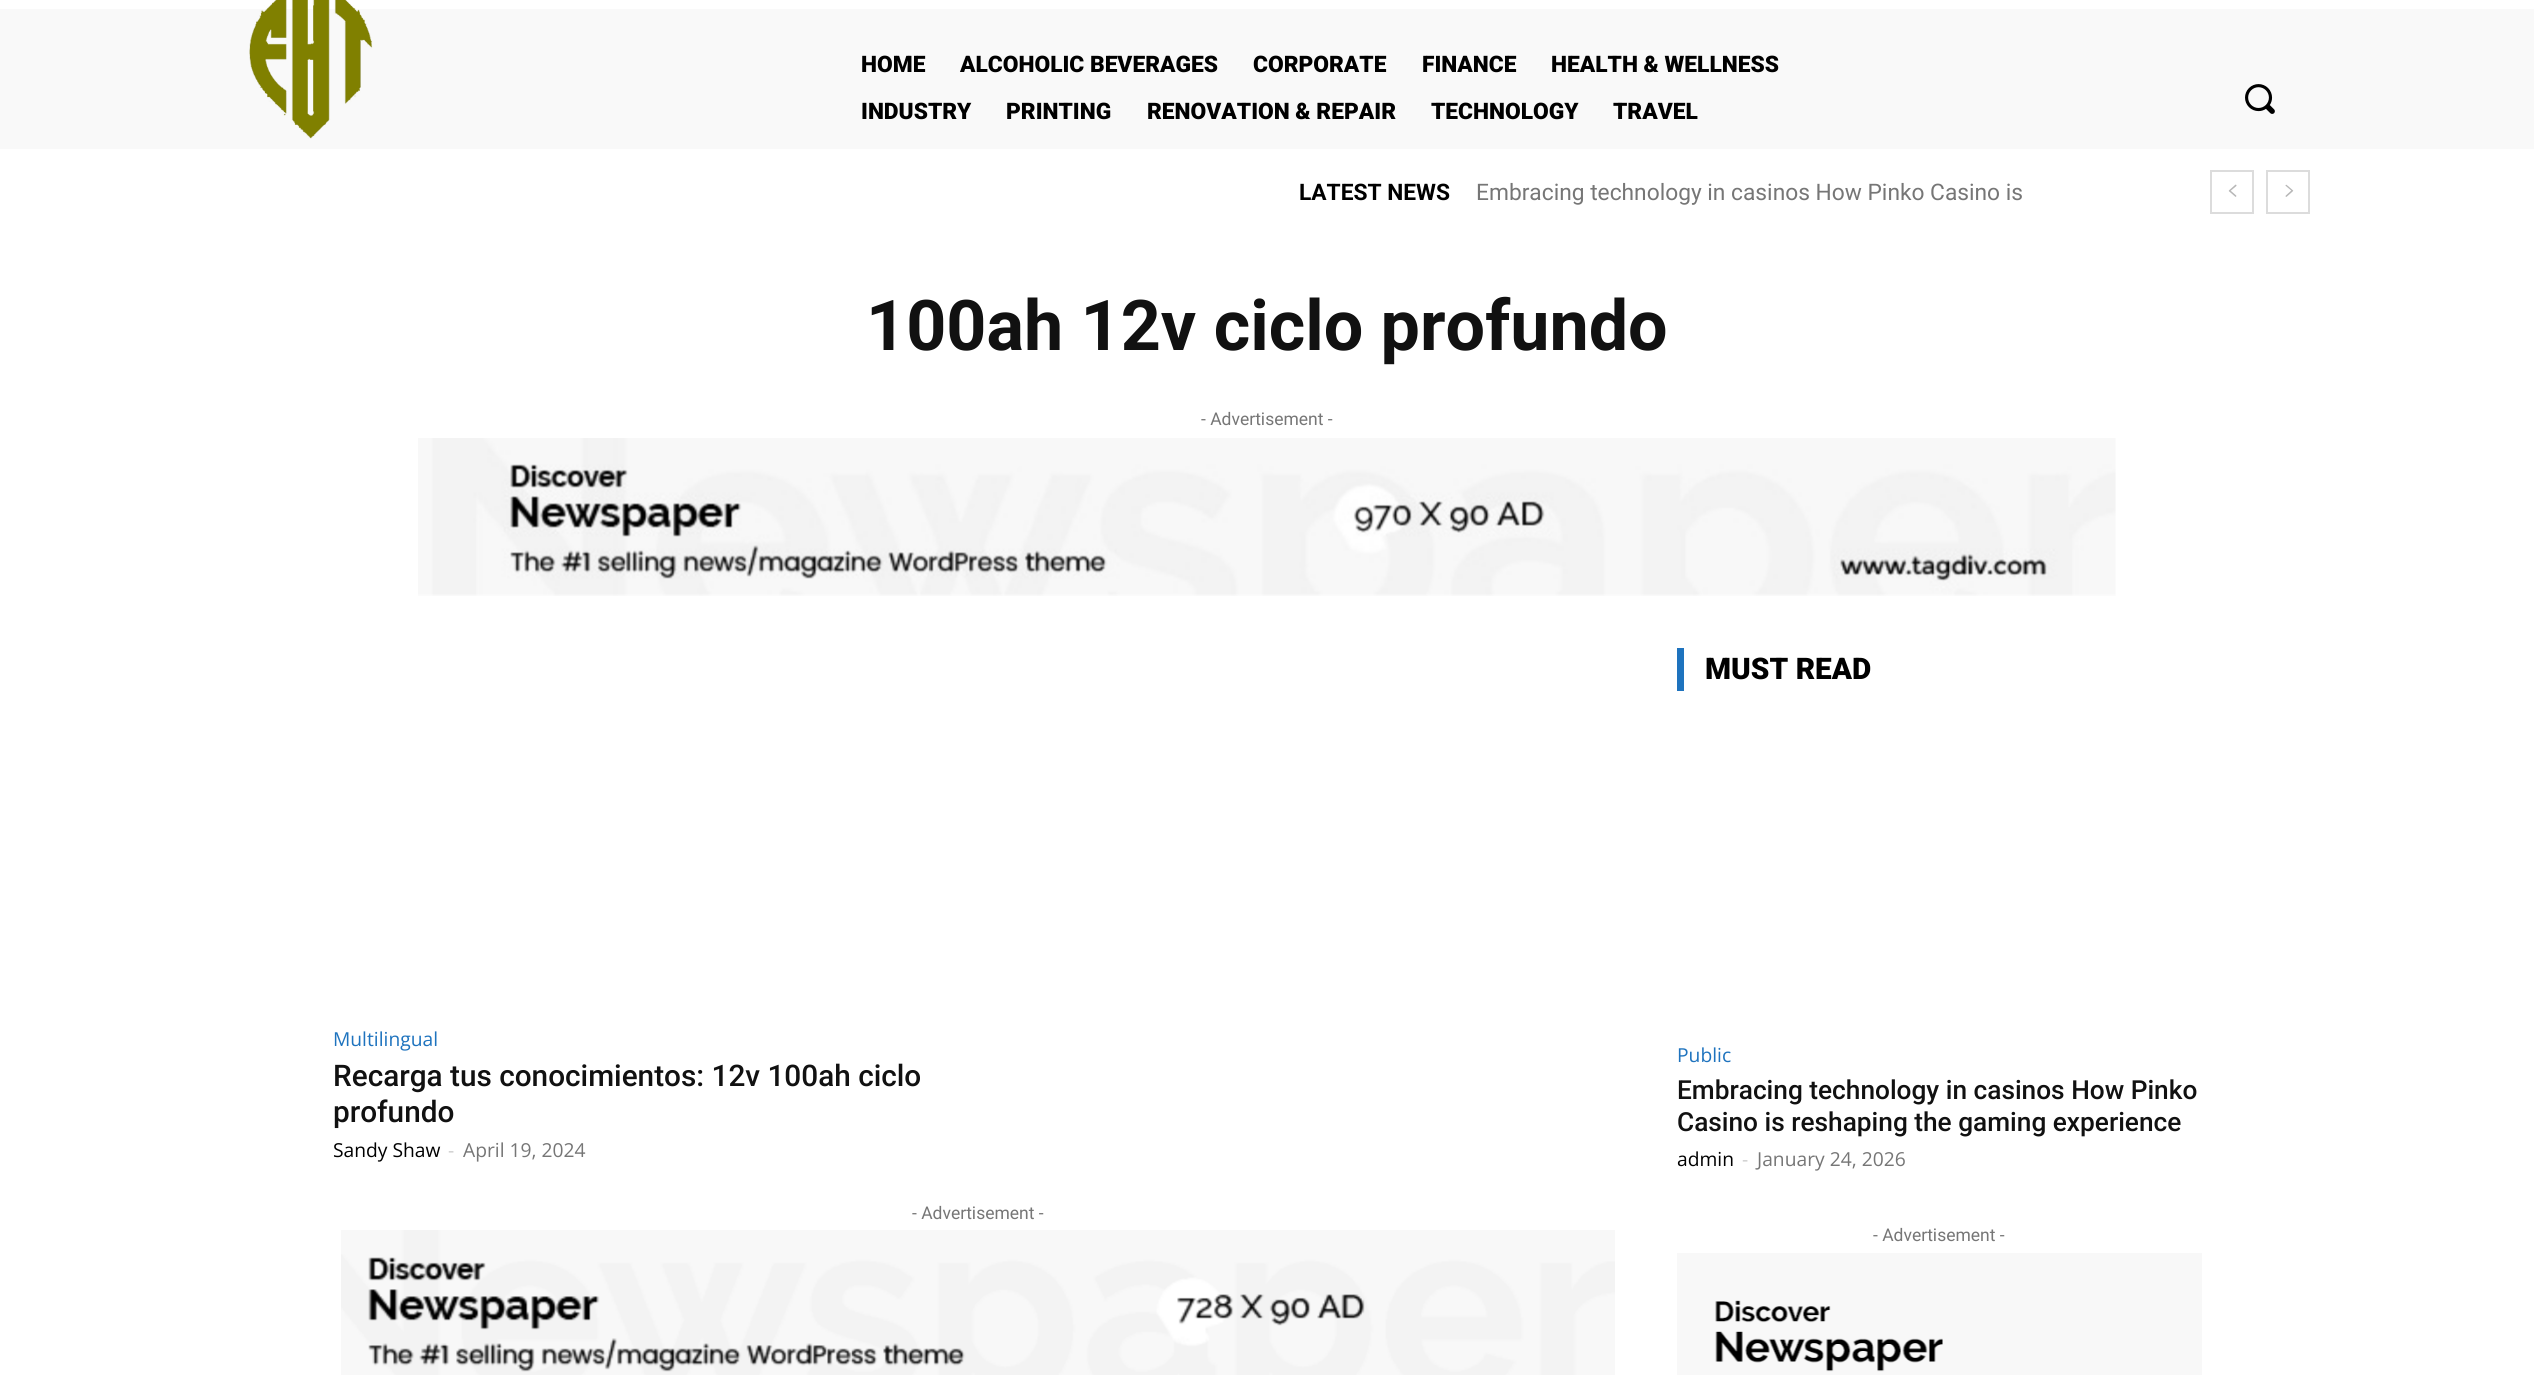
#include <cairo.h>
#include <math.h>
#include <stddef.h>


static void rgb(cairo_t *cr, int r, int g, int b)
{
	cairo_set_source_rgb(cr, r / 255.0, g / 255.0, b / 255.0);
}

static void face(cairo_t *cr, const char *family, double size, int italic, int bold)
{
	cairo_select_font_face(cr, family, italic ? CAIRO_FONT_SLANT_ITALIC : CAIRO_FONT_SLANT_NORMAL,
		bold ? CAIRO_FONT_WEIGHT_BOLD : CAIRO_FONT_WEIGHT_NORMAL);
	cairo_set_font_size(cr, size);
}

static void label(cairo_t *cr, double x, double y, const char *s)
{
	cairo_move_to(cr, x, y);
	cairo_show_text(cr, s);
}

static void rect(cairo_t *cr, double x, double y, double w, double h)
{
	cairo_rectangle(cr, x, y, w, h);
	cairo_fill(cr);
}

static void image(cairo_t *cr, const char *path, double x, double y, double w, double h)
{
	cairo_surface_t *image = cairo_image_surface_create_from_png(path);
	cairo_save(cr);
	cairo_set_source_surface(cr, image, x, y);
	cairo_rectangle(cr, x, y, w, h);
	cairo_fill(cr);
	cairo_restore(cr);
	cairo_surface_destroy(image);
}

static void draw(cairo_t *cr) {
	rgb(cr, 255, 255, 255);
	cairo_paint(cr);
	rgb(cr, 249, 249, 249);
	rect(cr, 0, 9, 2534, 140);
	image(cr, "image0.png", 249, 0, 124, 139);
	face(cr, "Roboto Black", 22.75, 0, 0);
	rgb(cr, 0, 0, 0);
	label(cr, 861, 72, "HOME");
	label(cr, 960, 72, "ALCOHOLIC BEVERAGES");
	label(cr, 1253, 72, "CORPORATE");
	label(cr, 1422, 72, "FINANCE");
	label(cr, 1551, 72, "HEALTH & WELLNESS");
	label(cr, 861, 119, "INDUSTRY");
	label(cr, 1006, 119, "PRINTING");
	label(cr, 1147, 119, "RENOVATION & REPAIR");
	label(cr, 1431, 119, "TECHNOLOGY");
	label(cr, 1613, 119, "TRAVEL");
	image(cr, "image1.png", 2245, 84, 30, 30);
	face(cr, "Roboto", 22.75, 0, 1);
	label(cr, 1299, 200, "LATEST NEWS");
	face(cr, "Roboto", 22.75, 0, 0);
	rgb(cr, 118, 118, 118);
	label(cr, 1476, 200, "Embracing technology in casinos How Pinko Casino is");
	cairo_rectangle(cr, 2211, 171, 42, 42);
	rgb(cr, 220, 220, 220);
	cairo_stroke(cr);
	image(cr, "image2.png", 2228, 184, 9, 13);
	cairo_rectangle(cr, 2267, 171, 42, 42);
	cairo_stroke(cr);
	image(cr, "image3.png", 2285, 184, 9, 13);
	face(cr, "Roboto", 70, 0, 1);
	rgb(cr, 17, 17, 17);
	label(cr, 866, 350, "100ah 12v ciclo profundo");
	face(cr, "Roboto", 17.5, 0, 0);
	rgb(cr, 118, 118, 118);
	label(cr, 1201, 425, "- Advertisement -");
	image(cr, "image4.png", 418, 438, 1698, 158);
	face(cr, "Open Sans", 19.25, 0, 0);
	rgb(cr, 30, 115, 190);
	label(cr, 333, 1046, "Multilingual");
	face(cr, "Roboto Medium", 29.75, 0, 0);
	rgb(cr, 17, 17, 17);
	label(cr, 333, 1086, "Recarga tus conocimientos: 12v 100ah ciclo");
	label(cr, 333, 1122, "profundo");
	face(cr, "Open Sans", 19.25, 0, 0);
	rgb(cr, 0, 0, 0);
	label(cr, 333, 1157, "Sandy Shaw");
	rgb(cr, 204, 204, 204);
	label(cr, 448, 1157, "-");
	rgb(cr, 118, 118, 118);
	label(cr, 463, 1157, "April 19, 2024");
	face(cr, "Roboto", 17.5, 0, 0);
	label(cr, 912, 1219, "- Advertisement -");
	image(cr, "image5.png", 341, 1230, 1274, 145);
	rgb(cr, 30, 115, 190);
	rect(cr, 1677, 648, 7, 43);
	face(cr, "Roboto Black", 29.75, 0, 0);
	rgb(cr, 0, 0, 0);
	label(cr, 1705, 679, "MUST READ");
	face(cr, "Open Sans", 19.25, 0, 0);
	rgb(cr, 30, 115, 190);
	label(cr, 1677, 1062, "Public");
	face(cr, "Roboto Medium", 26.25, 0, 0);
	rgb(cr, 17, 17, 17);
	label(cr, 1677, 1099, "Embracing technology in casinos How Pinko");
	label(cr, 1677, 1131, "Casino is reshaping the gaming experience");
	face(cr, "Open Sans", 19.25, 0, 0);
	rgb(cr, 0, 0, 0);
	label(cr, 1677, 1166, "admin");
	rgb(cr, 204, 204, 204);
	label(cr, 1742, 1166, "-");
	rgb(cr, 118, 118, 118);
	label(cr, 1757, 1166, "January 24, 2026");
	face(cr, "Roboto", 17.5, 0, 0);
	label(cr, 1873, 1241, "- Advertisement -");
	image(cr, "image6.png", 1677, 1253, 525, 122);
}

int main(void) {
	cairo_surface_t *surface = cairo_image_surface_create(CAIRO_FORMAT_RGB24, 2534, 1375);
	cairo_t *cr = cairo_create(surface);
	cairo_font_options_t *options = cairo_font_options_create();
	cairo_font_options_set_hint_metrics(options, CAIRO_HINT_METRICS_OFF);
	cairo_font_options_set_hint_style(options, CAIRO_HINT_STYLE_NONE);
	cairo_set_font_options(cr, options);
	cairo_set_miter_limit(cr, 4);
	draw(cr);
	cairo_surface_write_to_png(surface, "render.png");
	cairo_font_options_destroy(options);
	cairo_destroy(cr);
	cairo_surface_destroy(surface);
	return 0;
}
